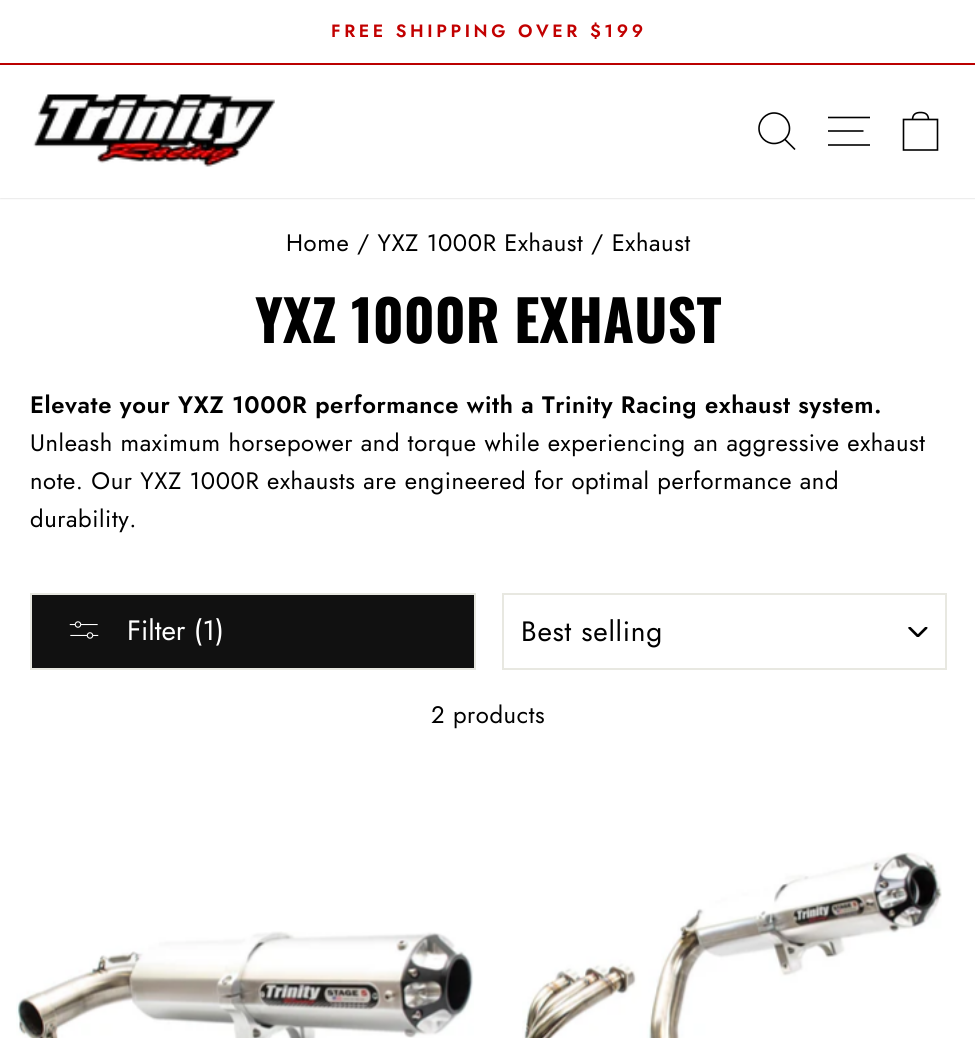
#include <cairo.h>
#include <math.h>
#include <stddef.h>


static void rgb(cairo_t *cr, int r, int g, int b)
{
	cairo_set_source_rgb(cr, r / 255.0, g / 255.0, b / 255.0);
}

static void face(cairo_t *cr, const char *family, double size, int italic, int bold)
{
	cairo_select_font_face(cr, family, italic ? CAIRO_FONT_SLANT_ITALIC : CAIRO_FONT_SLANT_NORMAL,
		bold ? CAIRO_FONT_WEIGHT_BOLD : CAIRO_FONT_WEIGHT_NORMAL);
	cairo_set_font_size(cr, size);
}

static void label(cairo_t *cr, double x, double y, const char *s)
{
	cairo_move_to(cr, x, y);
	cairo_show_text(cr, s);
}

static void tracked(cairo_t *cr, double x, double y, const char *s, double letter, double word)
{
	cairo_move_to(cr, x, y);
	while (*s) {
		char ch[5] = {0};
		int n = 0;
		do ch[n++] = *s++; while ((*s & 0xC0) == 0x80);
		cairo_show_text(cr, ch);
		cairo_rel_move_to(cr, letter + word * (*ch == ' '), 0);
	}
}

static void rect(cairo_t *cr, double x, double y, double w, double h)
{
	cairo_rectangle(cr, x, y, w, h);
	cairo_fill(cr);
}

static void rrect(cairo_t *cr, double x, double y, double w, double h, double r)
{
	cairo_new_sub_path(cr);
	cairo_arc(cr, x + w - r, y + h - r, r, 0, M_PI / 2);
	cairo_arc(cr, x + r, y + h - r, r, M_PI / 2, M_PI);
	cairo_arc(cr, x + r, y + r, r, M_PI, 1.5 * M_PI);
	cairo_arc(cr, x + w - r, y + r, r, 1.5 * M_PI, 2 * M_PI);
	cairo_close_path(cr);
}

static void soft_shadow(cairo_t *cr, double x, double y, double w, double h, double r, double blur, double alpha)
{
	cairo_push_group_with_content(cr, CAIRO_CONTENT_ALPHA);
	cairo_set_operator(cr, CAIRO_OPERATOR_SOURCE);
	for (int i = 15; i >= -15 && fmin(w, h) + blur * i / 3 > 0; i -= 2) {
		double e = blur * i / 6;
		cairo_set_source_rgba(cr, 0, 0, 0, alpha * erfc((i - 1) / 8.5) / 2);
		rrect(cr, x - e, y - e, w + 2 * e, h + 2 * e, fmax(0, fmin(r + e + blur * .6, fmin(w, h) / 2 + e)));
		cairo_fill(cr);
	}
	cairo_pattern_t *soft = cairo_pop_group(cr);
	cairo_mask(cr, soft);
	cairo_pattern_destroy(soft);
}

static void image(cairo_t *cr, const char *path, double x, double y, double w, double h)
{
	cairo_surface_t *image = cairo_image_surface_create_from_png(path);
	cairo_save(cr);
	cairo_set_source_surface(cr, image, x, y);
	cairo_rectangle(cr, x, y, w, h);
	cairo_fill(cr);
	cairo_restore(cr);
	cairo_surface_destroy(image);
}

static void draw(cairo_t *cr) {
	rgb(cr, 255, 255, 255);
	cairo_paint(cr);
	rgb(cr, 194, 0, 0);
	rect(cr, 0, 63, 975, 2);
	face(cr, "Jost SemiBold", 17.8, 0, 0);
	tracked(cr, 331, 37, "FREE SHIPPING OVER $199", 3.6, 0);
	rgb(cr, 0, 0, 0);
	soft_shadow(cr, 0, 65, 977, 133, 0, 1, 0.2);
	rgb(cr, 255, 255, 255);
	rect(cr, 0, 65, 975, 133);
	image(cr, "image0.png", 33, 94, 242, 73);
	cairo_new_path(cr);
	cairo_move_to(cr, 789.5, 128.5);
	cairo_curve_to(cr, 789.5, 137, 782.5, 143.5, 774, 143.5);
	cairo_curve_to(cr, 766, 143.5, 759, 137, 759, 128.5);
	cairo_curve_to(cr, 759, 120, 766, 113, 774, 113);
	cairo_curve_to(cr, 782.5, 113, 789.5, 120, 789.5, 128.5);
	cairo_close_path(cr);
	cairo_move_to(cr, 795, 149.5);
	cairo_line_to(cr, 785, 139.5);
	rgb(cr, 0, 0, 0);
	cairo_set_line_width(cr, 1.6);
	cairo_stroke(cr);
	cairo_new_path(cr);
	cairo_move_to(cr, 828, 117.5);
	cairo_line_to(cr, 870, 117.5);
	cairo_move_to(cr, 828, 131);
	cairo_line_to(cr, 863.5, 131);
	cairo_move_to(cr, 828, 145);
	cairo_line_to(cr, 870, 145);
	cairo_stroke(cr);
	cairo_new_path(cr);
	cairo_move_to(cr, 903.5, 119.5);
	cairo_line_to(cr, 937.5, 119.5);
	cairo_line_to(cr, 937.5, 150);
	cairo_line_to(cr, 903.5, 150);
	cairo_close_path(cr);
	cairo_move_to(cr, 912.5, 120);
	cairo_curve_to(cr, 912.5, 114, 916, 112.5, 920.5, 112.5);
	cairo_curve_to(cr, 925, 112.5, 928.5, 114, 928.5, 120);
	cairo_stroke(cr);
	face(cr, "Jost", 23.8, 0, 0);
	tracked(cr, 286, 251, "Home / YXZ 1000R Exhaust / Exhaust", 0.6, 0);
	face(cr, "Oswald", 56.5, 0, 1);
	label(cr, 255, 343, "YXZ 1000R EXHAUST");
	face(cr, "Jost SemiBold", 23.8, 0, 0);
	tracked(cr, 30, 413, "Elevate your YXZ 1000R performance with a Trinity Racing exhaust system.", 0.6, 0);
	face(cr, "Jost", 23.8, 0, 0);
	tracked(cr, 30, 451, "Unleash maximum horsepower and torque while experiencing an aggressive exhaust", 0.6, 0);
	tracked(cr, 30, 489, "note. Our YXZ 1000R exhausts are engineered for optimal performance and", 0.6, 0);
	tracked(cr, 30, 527, "durability.", 0.6, 0);
	rgb(cr, 17, 17, 17);
	cairo_rectangle(cr, 31, 594, 444, 75);
	cairo_fill_preserve(cr);
	rgb(cr, 232, 232, 225);
	cairo_set_line_width(cr, 2);
	cairo_stroke(cr);
	image(cr, "image1.png", 69, 621, 30, 18);
	face(cr, "Jost", 28, 0, 0);
	rgb(cr, 255, 255, 255);
	label(cr, 127, 640, "Filter (1)");
	image(cr, "image2.png", 908, 627, 20, 10);
	cairo_rectangle(cr, 503, 594, 443, 75);
	rgb(cr, 232, 232, 225);
	cairo_stroke(cr);
	rgb(cr, 0, 0, 0);
	tracked(cr, 521, 641, "Best selling", 0.75, 0);
	face(cr, "Jost", 23.8, 0, 0);
	tracked(cr, 431, 723, "2 products", 0.6, 0);
	image(cr, "image3.png", 16, 931, 458, 107);
	image(cr, "image4.png", 522, 852, 420, 186);
}

int main(void) {
	cairo_surface_t *surface = cairo_image_surface_create(CAIRO_FORMAT_RGB24, 975, 1038);
	cairo_t *cr = cairo_create(surface);
	cairo_font_options_t *options = cairo_font_options_create();
	cairo_font_options_set_hint_metrics(options, CAIRO_HINT_METRICS_OFF);
	cairo_font_options_set_hint_style(options, CAIRO_HINT_STYLE_NONE);
	cairo_set_font_options(cr, options);
	cairo_set_miter_limit(cr, 4);
	draw(cr);
	cairo_surface_write_to_png(surface, "render.png");
	cairo_font_options_destroy(options);
	cairo_destroy(cr);
	cairo_surface_destroy(surface);
	return 0;
}
